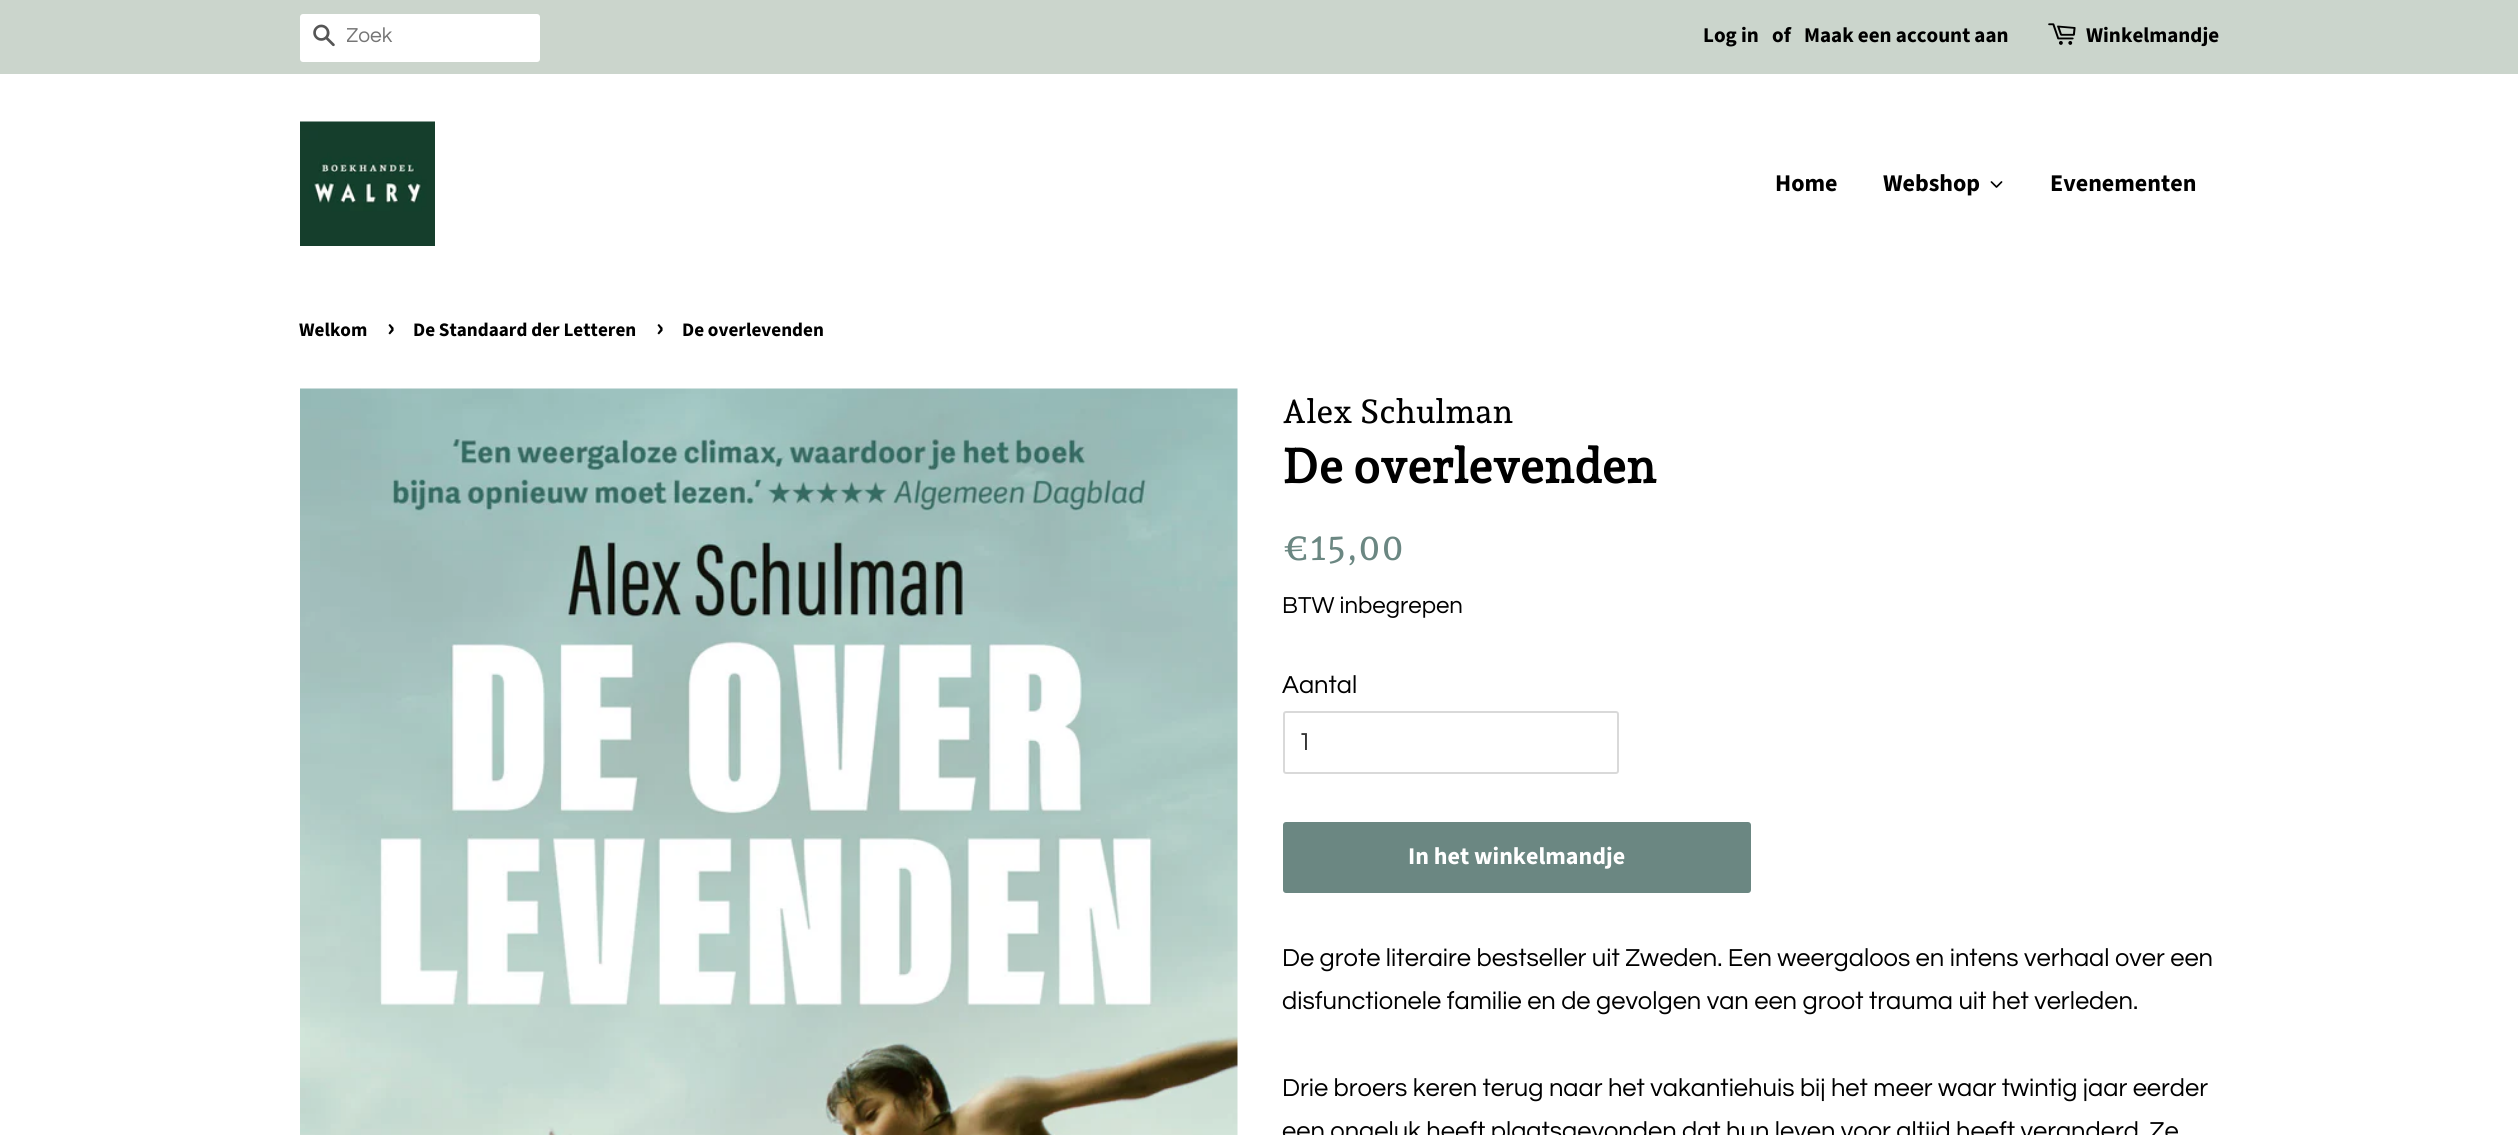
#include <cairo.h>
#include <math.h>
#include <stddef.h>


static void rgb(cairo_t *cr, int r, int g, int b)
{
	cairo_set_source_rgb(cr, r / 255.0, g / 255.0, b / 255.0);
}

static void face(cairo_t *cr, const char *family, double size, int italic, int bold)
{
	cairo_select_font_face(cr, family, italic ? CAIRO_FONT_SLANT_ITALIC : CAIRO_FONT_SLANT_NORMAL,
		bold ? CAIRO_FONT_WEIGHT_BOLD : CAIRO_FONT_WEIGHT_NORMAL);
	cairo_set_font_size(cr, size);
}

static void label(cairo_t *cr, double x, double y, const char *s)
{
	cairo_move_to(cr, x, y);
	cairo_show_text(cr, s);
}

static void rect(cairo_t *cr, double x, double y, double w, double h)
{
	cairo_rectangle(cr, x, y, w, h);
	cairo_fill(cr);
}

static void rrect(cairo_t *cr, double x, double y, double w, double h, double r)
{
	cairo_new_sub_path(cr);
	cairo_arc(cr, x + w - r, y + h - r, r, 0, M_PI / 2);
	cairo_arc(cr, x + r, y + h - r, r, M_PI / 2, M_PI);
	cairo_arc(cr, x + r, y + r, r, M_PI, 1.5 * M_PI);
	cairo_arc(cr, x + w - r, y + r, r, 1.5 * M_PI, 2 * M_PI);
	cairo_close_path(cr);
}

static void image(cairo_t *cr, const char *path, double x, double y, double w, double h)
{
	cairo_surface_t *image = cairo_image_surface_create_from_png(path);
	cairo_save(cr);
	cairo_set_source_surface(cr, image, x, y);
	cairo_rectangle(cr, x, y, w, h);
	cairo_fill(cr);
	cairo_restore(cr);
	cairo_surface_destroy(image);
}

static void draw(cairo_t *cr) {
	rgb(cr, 255, 255, 255);
	cairo_paint(cr);
	rgb(cr, 203, 213, 204);
	rect(cr, 0, 0, 2518, 74);
	rgb(cr, 255, 255, 255);
	rrect(cr, 300, 14, 240, 48, 3);
	cairo_fill(cr);
	image(cr, "image0.png", 313, 24, 22, 23);
	cairo_save(cr);
	cairo_rectangle(cr, 347, 26, 186, 21);
	cairo_clip(cr);
	face(cr, "Questrial", 21, 0, 0);
	rgb(cr, 117, 117, 117);
	label(cr, 346, 42, "Zoek");
	cairo_restore(cr);
	face(cr, "Source Sans Pro", 21, 0, 1);
	rgb(cr, 0, 0, 0);
	label(cr, 1703, 42, "Log in");
	label(cr, 1772, 42, "of");
	label(cr, 1804, 42, "Maak een account aan");
	image(cr, "image1.png", 2048, 23, 28, 22);
	label(cr, 2086, 42, "Winkelmandje");
	image(cr, "image2.png", 300, 121, 135, 125);
	face(cr, "Source Sans Pro", 24, 0, 1);
	label(cr, 1775, 191, "Home");
	label(cr, 1883, 191, "Webshop");
	image(cr, "image3.png", 1990, 181, 13, 7);
	label(cr, 2050, 191, "Evenementen");
	face(cr, "Source Sans Pro", 19.1, 0, 1);
	label(cr, 299, 336, "Welkom");
	face(cr, "Source Sans Pro", 27, 0, 1);
	label(cr, 387, 336, "›");
	face(cr, "Source Sans Pro", 19.1, 0, 1);
	label(cr, 413, 336, "De Standaard der Letteren");
	face(cr, "Source Sans Pro", 27, 0, 1);
	label(cr, 656, 336, "›");
	face(cr, "Source Sans Pro", 19.1, 0, 1);
	label(cr, 682, 336, "De overlevenden");
	image(cr, "image4.png", 300, 388, 938, 747);
	face(cr, "Andada Pro Medium", 33, 0, 0);
	label(cr, 1282, 423, "Alex Schulman");
	face(cr, "Andada Pro", 48, 0, 1);
	label(cr, 1282, 483, "De overlevenden");
	face(cr, "Andada Pro Medium", 35.5, 0, 0);
	rgb(cr, 107, 135, 130);
	label(cr, 1282, 560, "€15,00");
	face(cr, "Questrial", 24, 0, 0);
	rgb(cr, 0, 0, 0);
	label(cr, 1282, 613, "BTW inbegrepen");
	face(cr, "Questrial", 25.5, 0, 0);
	label(cr, 1282, 693, "Aantal");
	rrect(cr, 1284, 712, 334, 61, 2);
	rgb(cr, 217, 217, 217);
	cairo_stroke(cr);
	rgb(cr, 51, 51, 51);
	label(cr, 1298, 750, "1");
	rgb(cr, 107, 135, 130);
	rrect(cr, 1283, 822, 468, 71, 3);
	cairo_fill(cr);
	face(cr, "Source Sans Pro", 24, 0, 1);
	rgb(cr, 255, 255, 255);
	label(cr, 1408, 864, "In het winkelmandje");
	face(cr, "Questrial", 25.5, 0, 0);
	rgb(cr, 0, 0, 0);
	label(cr, 1282, 966, "De grote literaire bestseller uit Zweden. Een weergaloos en intens verhaal over een");
	label(cr, 1282, 1009, "disfunctionele familie en de gevolgen van een groot trauma uit het verleden.");
	label(cr, 1282, 1096, "Drie broers keren terug naar het vakantiehuis bij het meer waar twintig jaar eerder");
	label(cr, 1282, 1139, "een ongeluk heeft plaatsgevonden dat hun leven voor altijd heeft veranderd. Ze");
}

int main(void) {
	cairo_surface_t *surface = cairo_image_surface_create(CAIRO_FORMAT_RGB24, 2518, 1135);
	cairo_t *cr = cairo_create(surface);
	cairo_font_options_t *options = cairo_font_options_create();
	cairo_font_options_set_hint_metrics(options, CAIRO_HINT_METRICS_OFF);
	cairo_font_options_set_hint_style(options, CAIRO_HINT_STYLE_NONE);
	cairo_set_font_options(cr, options);
	cairo_set_miter_limit(cr, 4);
	draw(cr);
	cairo_surface_write_to_png(surface, "render.png");
	cairo_font_options_destroy(options);
	cairo_destroy(cr);
	cairo_surface_destroy(surface);
	return 0;
}
